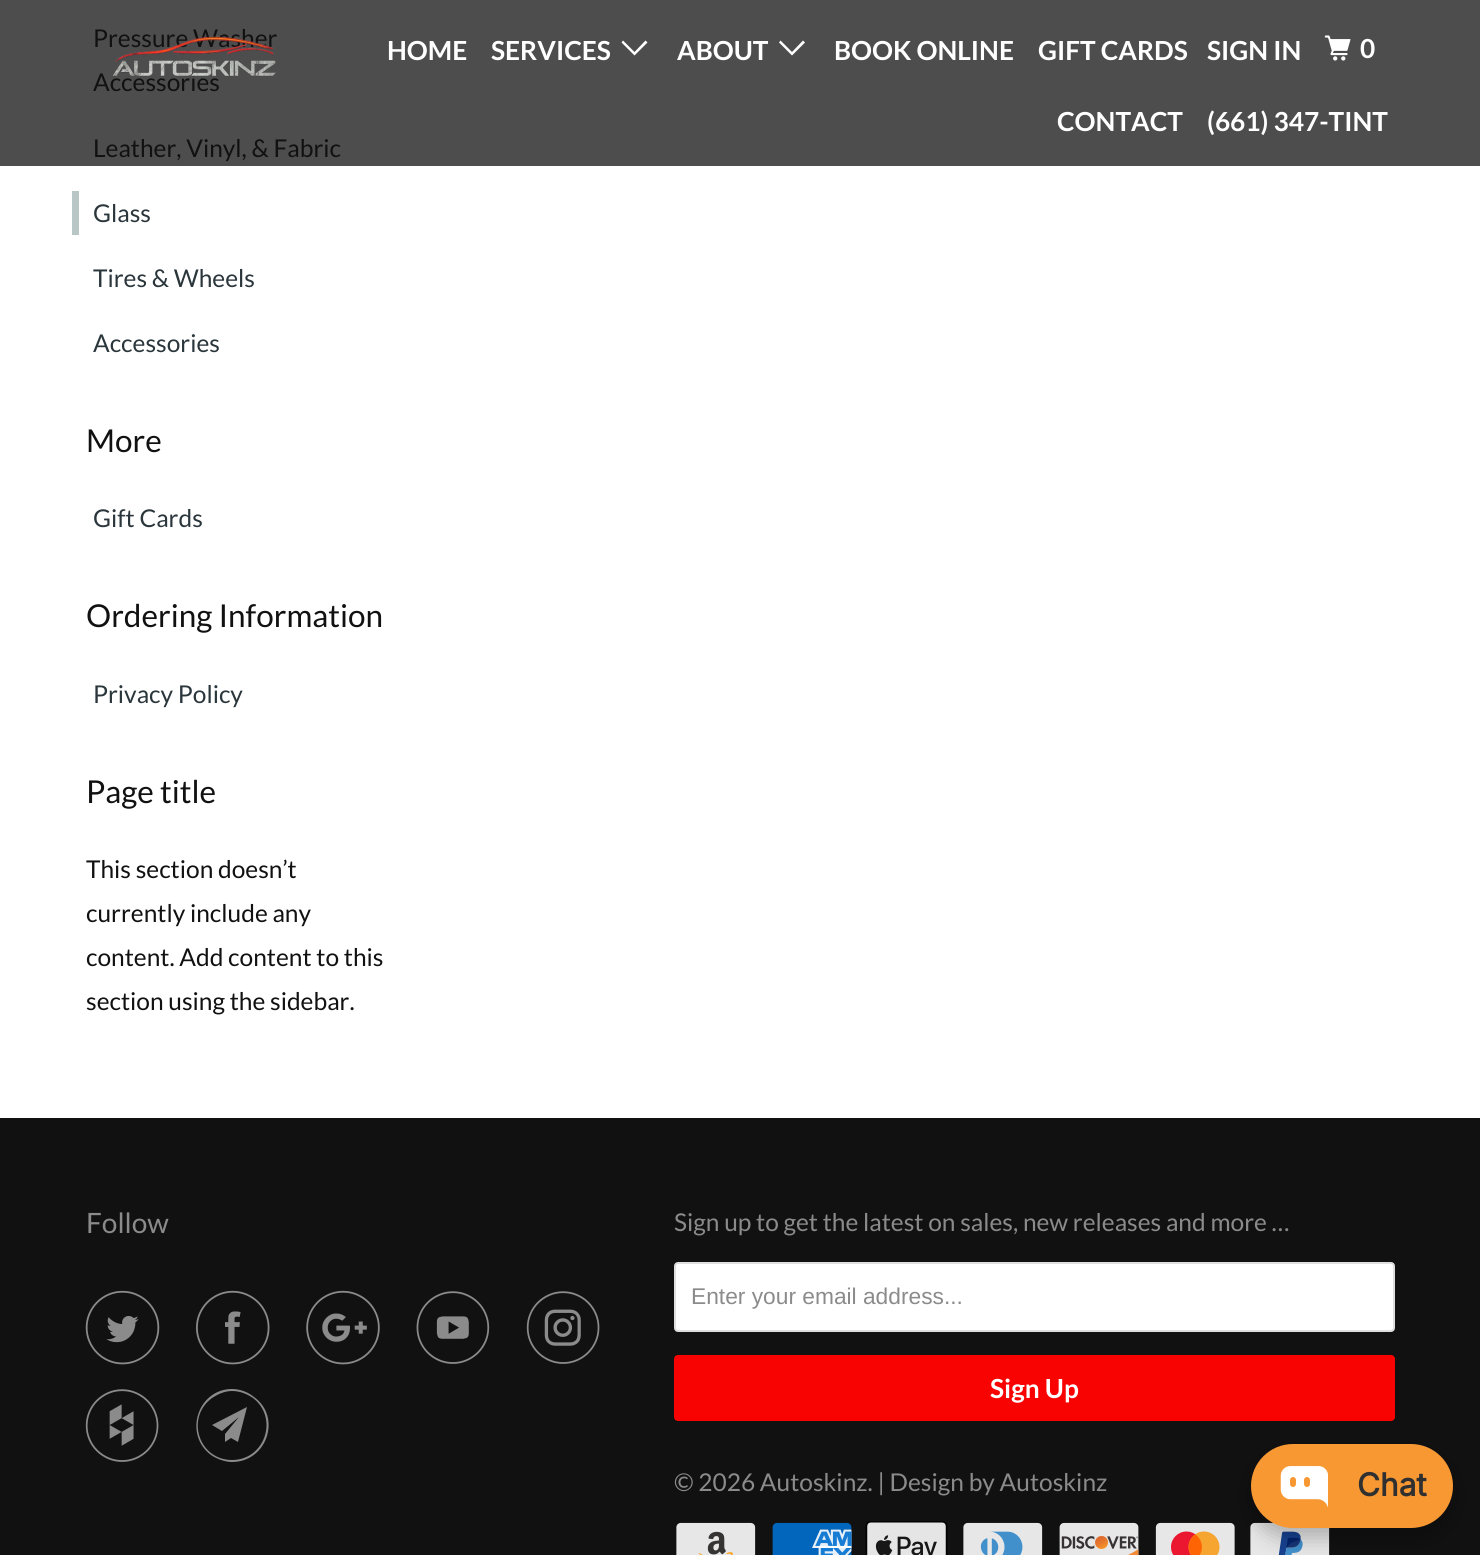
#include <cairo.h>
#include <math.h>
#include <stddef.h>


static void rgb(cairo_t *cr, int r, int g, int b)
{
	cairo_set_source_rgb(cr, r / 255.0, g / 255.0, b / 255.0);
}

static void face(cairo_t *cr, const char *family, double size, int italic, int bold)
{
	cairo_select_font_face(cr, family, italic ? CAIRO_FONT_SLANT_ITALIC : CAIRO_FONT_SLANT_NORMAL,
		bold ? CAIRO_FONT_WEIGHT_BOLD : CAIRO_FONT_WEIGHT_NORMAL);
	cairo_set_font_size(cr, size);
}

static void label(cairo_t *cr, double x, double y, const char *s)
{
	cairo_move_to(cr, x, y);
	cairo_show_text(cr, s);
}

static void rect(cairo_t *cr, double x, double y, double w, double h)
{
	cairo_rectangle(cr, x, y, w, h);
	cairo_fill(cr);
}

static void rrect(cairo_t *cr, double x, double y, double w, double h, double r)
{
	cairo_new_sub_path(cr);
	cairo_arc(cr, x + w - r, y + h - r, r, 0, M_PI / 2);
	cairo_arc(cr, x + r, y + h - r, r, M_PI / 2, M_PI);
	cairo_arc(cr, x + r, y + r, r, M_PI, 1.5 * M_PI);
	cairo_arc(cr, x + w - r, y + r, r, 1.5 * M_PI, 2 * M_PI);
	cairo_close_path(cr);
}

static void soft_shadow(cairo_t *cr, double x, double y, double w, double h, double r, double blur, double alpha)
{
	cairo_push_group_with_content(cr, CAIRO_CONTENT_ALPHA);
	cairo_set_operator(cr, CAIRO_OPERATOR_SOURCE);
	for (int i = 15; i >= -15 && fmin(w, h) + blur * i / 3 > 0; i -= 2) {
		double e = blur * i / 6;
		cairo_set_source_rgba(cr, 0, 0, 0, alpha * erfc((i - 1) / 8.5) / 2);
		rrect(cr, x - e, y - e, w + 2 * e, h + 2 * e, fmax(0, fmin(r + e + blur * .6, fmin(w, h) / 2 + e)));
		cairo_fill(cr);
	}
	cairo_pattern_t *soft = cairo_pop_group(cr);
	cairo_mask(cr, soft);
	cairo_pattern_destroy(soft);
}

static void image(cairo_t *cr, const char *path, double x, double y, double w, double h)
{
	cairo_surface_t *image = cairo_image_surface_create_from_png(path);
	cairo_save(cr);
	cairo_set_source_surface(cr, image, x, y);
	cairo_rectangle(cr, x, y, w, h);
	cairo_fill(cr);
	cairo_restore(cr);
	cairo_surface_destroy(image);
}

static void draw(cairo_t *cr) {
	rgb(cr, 255, 255, 255);
	cairo_paint(cr);
	rgb(cr, 77, 77, 77);
	rect(cr, 0, 0, 1480, 166);
	face(cr, "Lato", 24.5, 0, 0);
	rgb(cr, 17, 17, 17);
	label(cr, 93, 47, "Pressure Washer");
	label(cr, 93, 91, "Accessories");
	label(cr, 93, 157, "Leather, Vinyl, & Fabric");
	rgb(cr, 184, 198, 198);
	rect(cr, 72, 191, 7, 44);
	rgb(cr, 42, 54, 59);
	label(cr, 93, 222, "Glass");
	label(cr, 93, 287, "Tires & Wheels");
	label(cr, 93, 352, "Accessories");
	face(cr, "Lato", 31.5, 0, 0);
	rgb(cr, 17, 17, 17);
	label(cr, 86, 452, "More");
	face(cr, "Lato", 24.5, 0, 0);
	rgb(cr, 42, 54, 59);
	label(cr, 93, 527, "Gift Cards");
	face(cr, "Lato", 31.5, 0, 0);
	rgb(cr, 17, 17, 17);
	label(cr, 86, 627, "Ordering Information");
	face(cr, "Lato", 24.5, 0, 0);
	rgb(cr, 42, 54, 59);
	label(cr, 93, 703, "Privacy Policy");
	face(cr, "Lato", 31.5, 0, 0);
	rgb(cr, 17, 17, 17);
	label(cr, 86, 803, "Page title");
	face(cr, "Lato", 24.5, 0, 0);
	label(cr, 86, 878, "This section doesn’t");
	label(cr, 86, 922, "currently include any");
	label(cr, 86, 966, "content. Add content to this");
	label(cr, 86, 1010, "section using the sidebar.");
	image(cr, "image0.png", 113, 36, 163, 41);
	face(cr, "Lato", 26.25, 0, 1);
	rgb(cr, 255, 255, 255);
	label(cr, 1207, 60, "SIGN IN");
	image(cr, "image1.png", 1324, 35, 27, 26);
	label(cr, 1360, 58, "0");
	label(cr, 387, 60, "HOME");
	label(cr, 491, 60, "SERVICES");
	cairo_new_path(cr);
	cairo_move_to(cr, 628, 49);
	cairo_line_to(cr, 621.5, 42.5);
	cairo_line_to(cr, 623, 40.5);
	cairo_line_to(cr, 634.5, 52);
	cairo_line_to(cr, 645.5, 40.5);
	cairo_line_to(cr, 647.5, 42.5);
	cairo_line_to(cr, 634.5, 55.5);
	cairo_close_path(cr);
	cairo_fill(cr);
	label(cr, 677, 60, "ABOUT");
	cairo_new_path(cr);
	cairo_move_to(cr, 785.5, 49);
	cairo_line_to(cr, 779, 42.5);
	cairo_line_to(cr, 780.5, 40.5);
	cairo_line_to(cr, 792, 52);
	cairo_line_to(cr, 803, 40.5);
	cairo_line_to(cr, 805, 42.5);
	cairo_line_to(cr, 792, 55.5);
	cairo_close_path(cr);
	cairo_fill(cr);
	label(cr, 834, 60, "BOOK ONLINE");
	label(cr, 1038, 60, "GIFT CARDS");
	label(cr, 1057, 131, "CONTACT");
	label(cr, 1207, 131, "(661) 347-TINT");
	rgb(cr, 17, 17, 17);
	rect(cr, 0, 1118, 1480, 437);
	face(cr, "Lato", 28, 0, 0);
	rgb(cr, 139, 139, 139);
	label(cr, 86, 1233, "Follow");
	image(cr, "image2.png", 85, 1290, 75, 75);
	image(cr, "image3.png", 196, 1290, 74, 75);
	image(cr, "image4.png", 306, 1290, 74, 75);
	image(cr, "image5.png", 416, 1291, 74, 73);
	image(cr, "image6.png", 526, 1291, 74, 73);
	image(cr, "image7.png", 85, 1389, 74, 73);
	cairo_new_path(cr);
	cairo_move_to(cr, 238, 1442);
	cairo_line_to(cr, 231, 1438);
	cairo_line_to(cr, 225, 1442);
	cairo_line_to(cr, 225, 1434);
	cairo_line_to(cr, 239, 1417);
	cairo_line_to(cr, 222, 1431);
	cairo_line_to(cr, 212, 1425);
	cairo_line_to(cr, 247, 1407);
	cairo_close_path(cr);
	cairo_move_to(cr, 232, 1391);
	cairo_curve_to(cr, 225, 1391, 218, 1394, 212, 1398);
	cairo_curve_to(cr, 185, 1418, 199, 1460, 232, 1460);
	cairo_curve_to(cr, 265, 1460, 279, 1418, 253, 1398);
	cairo_curve_to(cr, 247, 1394, 240, 1391, 232, 1391);
	cairo_close_path(cr);
	cairo_move_to(cr, 232, 1462);
	cairo_curve_to(cr, 225, 1462, 217, 1459, 211, 1455);
	cairo_curve_to(cr, 183, 1434, 198, 1389, 232, 1389);
	cairo_curve_to(cr, 240, 1389, 248, 1392, 254, 1397);
	cairo_curve_to(cr, 282, 1417, 267, 1462, 232, 1462);
	cairo_close_path(cr);
	cairo_fill(cr);
	face(cr, "Lato", 24.5, 0, 0);
	label(cr, 674, 1231, "Sign up to get the latest on sales, new releases and more …");
	rgb(cr, 255, 255, 255);
	rrect(cr, 675, 1263, 719, 68, 3);
	cairo_fill_preserve(cr);
	rgb(cr, 223, 223, 223);
	cairo_stroke(cr);
	face(cr, "Liberation Sans", 22.75, 0, 0);
	rgb(cr, 139, 139, 139);
	label(cr, 691, 1304, "Enter your email address...");
	rgb(cr, 249, 2, 2);
	rrect(cr, 674, 1355, 721, 66, 4);
	cairo_fill(cr);
	face(cr, "Lato", 26.25, 0, 1);
	rgb(cr, 255, 255, 255);
	label(cr, 990, 1398, "Sign Up");
	face(cr, "Lato", 24.5, 0, 0);
	rgb(cr, 139, 139, 139);
	label(cr, 674, 1491, "© 2026 Autoskinz. | Design by Autoskinz");
	image(cr, "image8.png", 676, 1522, 80, 33);
	image(cr, "image9.png", 772, 1522, 80, 33);
	image(cr, "image10.png", 865, 1521, 83, 34);
	image(cr, "image11.png", 963, 1522, 80, 33);
	image(cr, "image12.png", 1059, 1522, 80, 33);
	image(cr, "image13.png", 1155, 1522, 80, 33);
	image(cr, "image14.png", 1250, 1522, 80, 33);
	rgb(cr, 0, 0, 0);
	soft_shadow(cr, 1251, 1454, 202, 84, 42, 10.5, 0.25);
	rgb(cr, 248, 152, 51);
	rrect(cr, 1251, 1444, 202, 84, 42);
	cairo_fill(cr);
	image(cr, "image15.png", 1280, 1466, 48, 41);
	face(cr, "Inter", 31.5, 0, 1);
	rgb(cr, 48, 48, 48);
	label(cr, 1357, 1496, "Chat");
}

int main(void) {
	cairo_surface_t *surface = cairo_image_surface_create(CAIRO_FORMAT_RGB24, 1480, 1555);
	cairo_t *cr = cairo_create(surface);
	cairo_font_options_t *options = cairo_font_options_create();
	cairo_font_options_set_hint_metrics(options, CAIRO_HINT_METRICS_OFF);
	cairo_font_options_set_hint_style(options, CAIRO_HINT_STYLE_NONE);
	cairo_set_font_options(cr, options);
	cairo_set_miter_limit(cr, 4);
	draw(cr);
	cairo_surface_write_to_png(surface, "render.png");
	cairo_font_options_destroy(options);
	cairo_destroy(cr);
	cairo_surface_destroy(surface);
	return 0;
}
